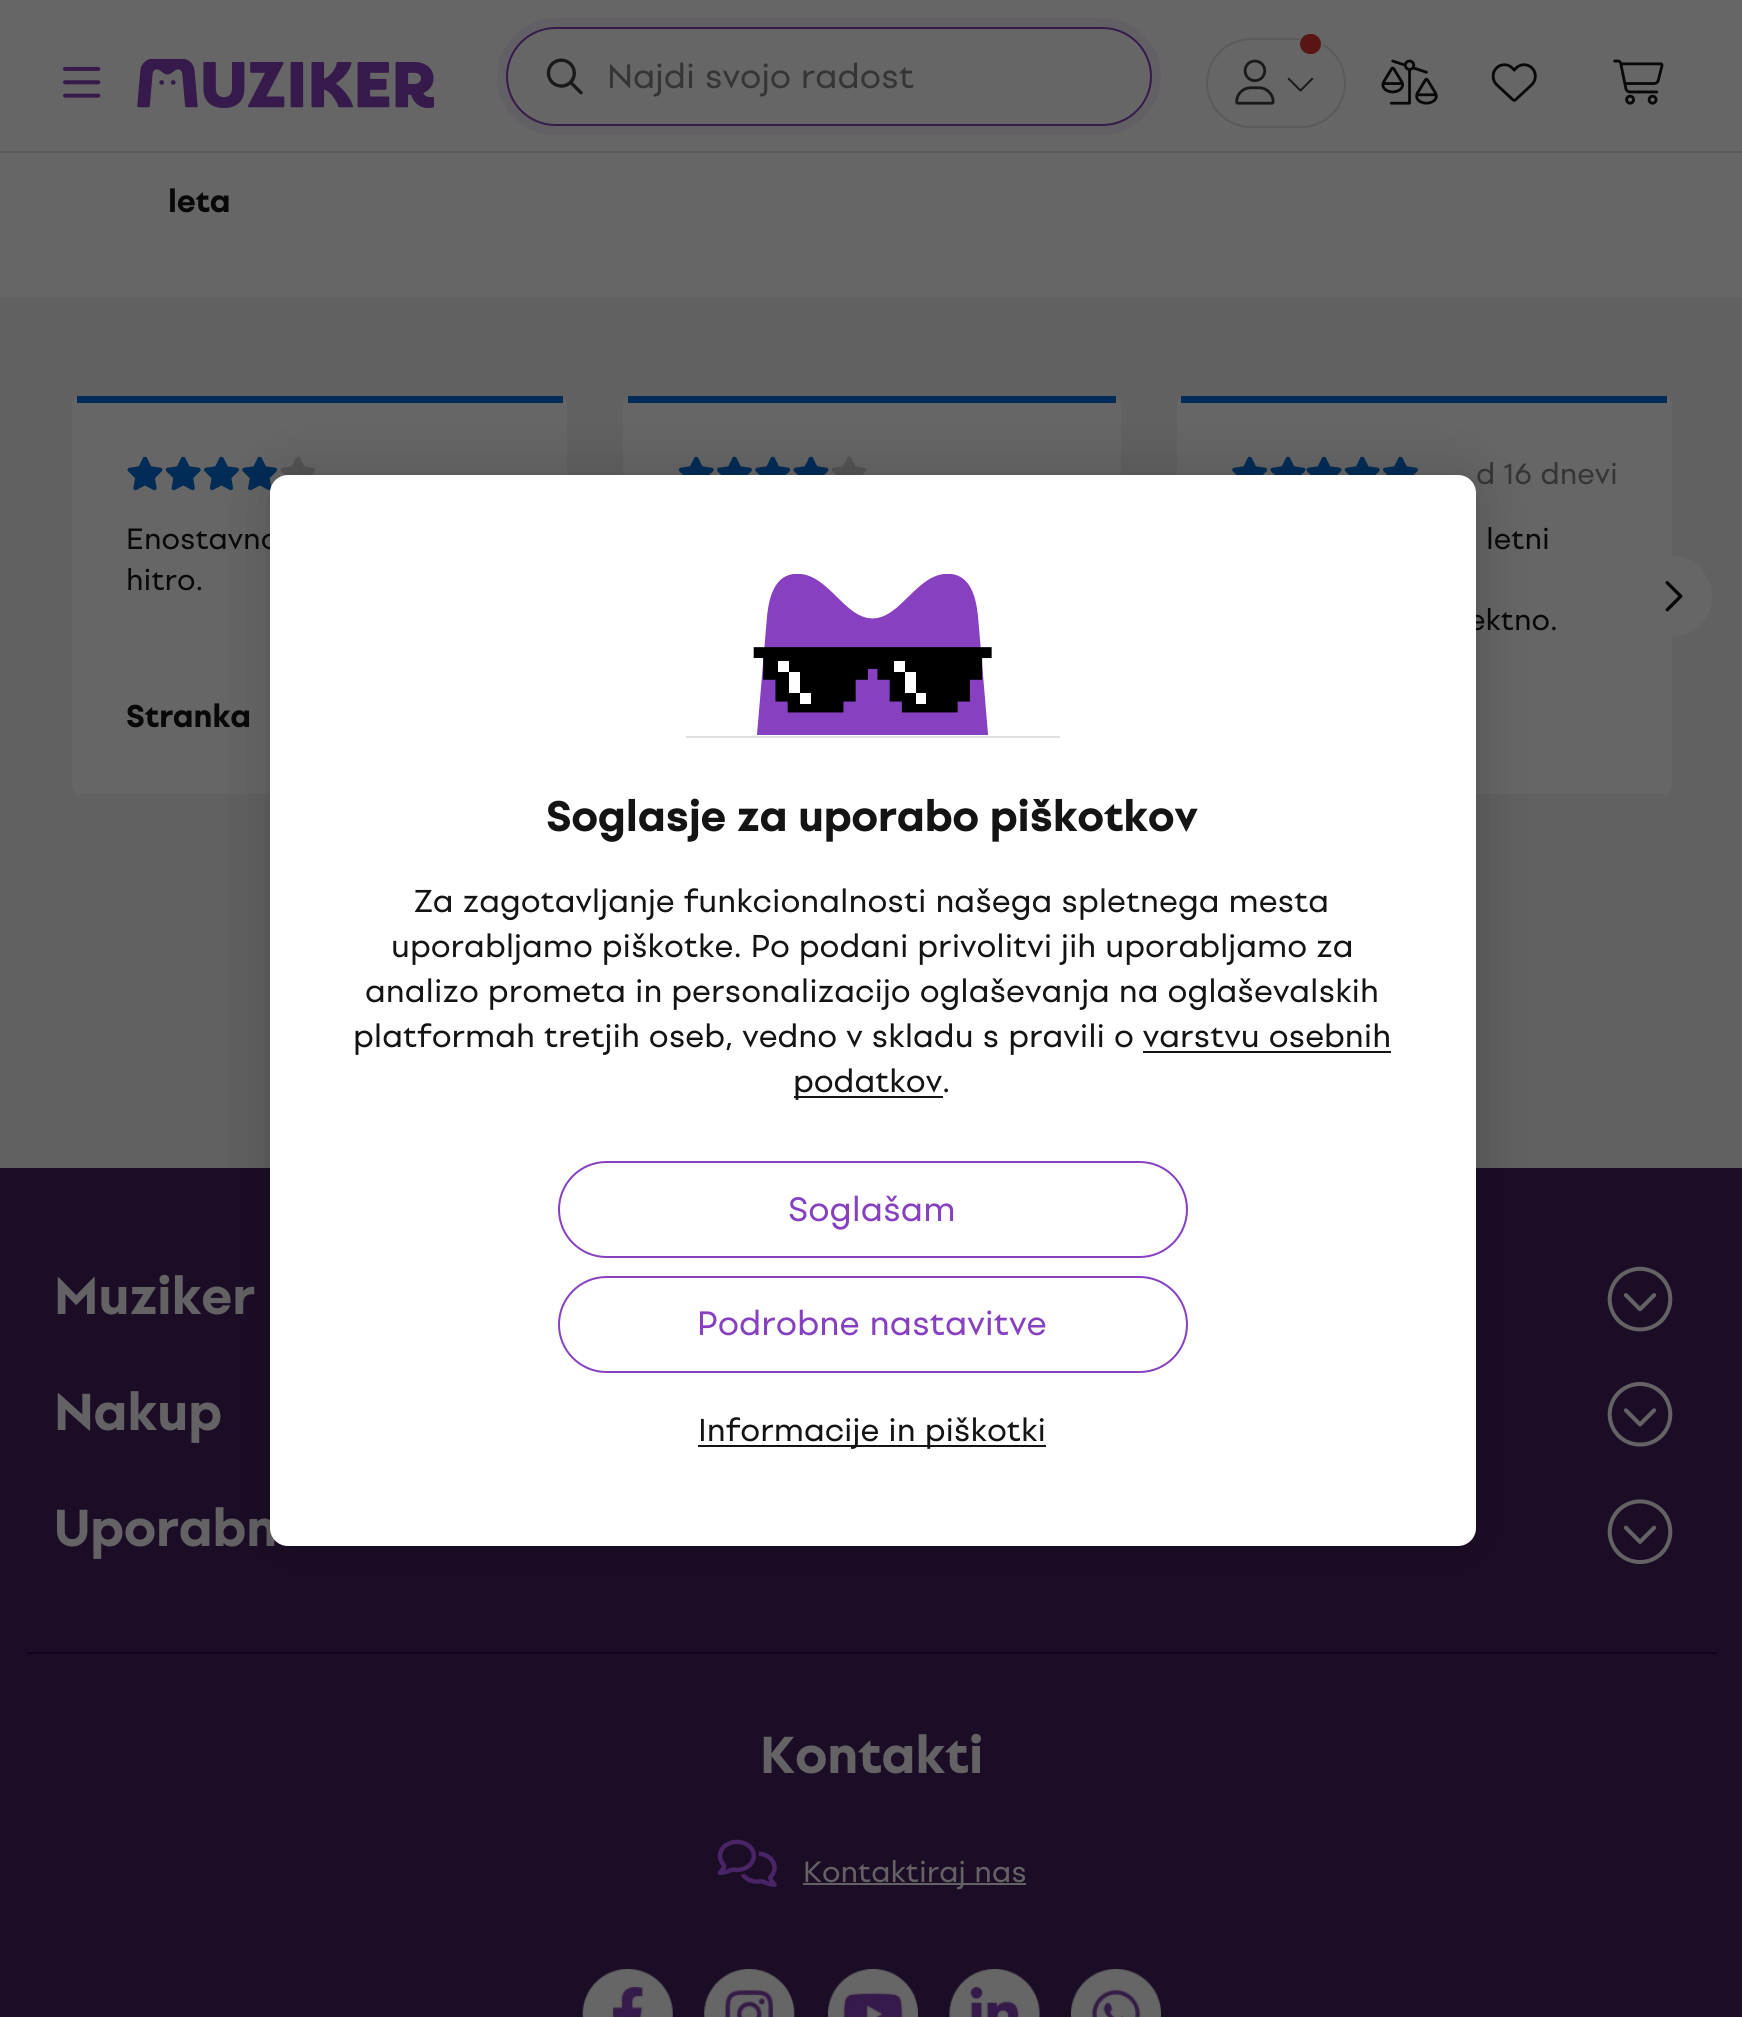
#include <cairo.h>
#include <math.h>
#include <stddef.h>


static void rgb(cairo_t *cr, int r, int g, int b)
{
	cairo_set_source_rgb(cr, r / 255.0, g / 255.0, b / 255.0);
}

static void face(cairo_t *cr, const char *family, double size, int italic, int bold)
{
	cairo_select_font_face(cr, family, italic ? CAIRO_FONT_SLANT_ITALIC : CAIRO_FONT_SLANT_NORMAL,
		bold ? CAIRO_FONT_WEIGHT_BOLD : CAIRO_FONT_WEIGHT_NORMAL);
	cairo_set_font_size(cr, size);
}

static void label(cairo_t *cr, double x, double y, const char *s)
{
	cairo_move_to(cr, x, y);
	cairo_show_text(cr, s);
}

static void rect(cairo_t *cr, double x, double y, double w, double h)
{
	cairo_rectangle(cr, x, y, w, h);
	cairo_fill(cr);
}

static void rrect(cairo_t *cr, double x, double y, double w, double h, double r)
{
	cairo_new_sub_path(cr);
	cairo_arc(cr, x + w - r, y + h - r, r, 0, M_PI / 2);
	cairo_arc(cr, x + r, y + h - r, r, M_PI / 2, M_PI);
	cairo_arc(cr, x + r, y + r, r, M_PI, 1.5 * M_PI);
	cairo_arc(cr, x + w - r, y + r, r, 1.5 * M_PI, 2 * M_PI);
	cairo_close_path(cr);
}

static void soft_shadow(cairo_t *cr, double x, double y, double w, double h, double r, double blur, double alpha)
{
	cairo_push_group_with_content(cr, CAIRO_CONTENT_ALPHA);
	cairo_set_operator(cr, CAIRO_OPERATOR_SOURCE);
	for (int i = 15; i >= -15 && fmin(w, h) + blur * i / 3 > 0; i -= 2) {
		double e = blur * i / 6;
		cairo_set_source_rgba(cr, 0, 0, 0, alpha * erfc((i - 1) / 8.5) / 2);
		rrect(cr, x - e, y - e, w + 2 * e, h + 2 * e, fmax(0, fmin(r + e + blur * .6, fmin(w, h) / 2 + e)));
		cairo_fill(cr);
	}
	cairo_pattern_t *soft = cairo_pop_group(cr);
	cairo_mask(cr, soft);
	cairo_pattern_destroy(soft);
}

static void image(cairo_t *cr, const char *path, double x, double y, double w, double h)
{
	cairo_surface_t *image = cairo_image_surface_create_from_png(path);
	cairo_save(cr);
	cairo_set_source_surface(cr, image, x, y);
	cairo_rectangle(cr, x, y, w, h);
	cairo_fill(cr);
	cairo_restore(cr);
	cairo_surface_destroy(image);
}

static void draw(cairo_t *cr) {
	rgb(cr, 102, 102, 102);
	cairo_paint(cr);
	rgb(cr, 90, 90, 89);
	rect(cr, 0, 151, 1742, 2);
	image(cr, "image0.png", 63, 66, 38, 32);
	image(cr, "image1.png", 137, 59, 297, 49);
	rrect(cr, 501.5, 22.5, 655, 108, 54);
	rgb(cr, 98, 96, 100);
	cairo_set_line_width(cr, 9);
	cairo_stroke(cr);
	rrect(cr, 507, 28, 644, 97, 48.5);
	rgb(cr, 54, 26, 76);
	cairo_set_line_width(cr, 2);
	cairo_stroke(cr);
	image(cr, "image2.png", 546, 58, 37, 37);
	face(cr, "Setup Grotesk", 33.75, 0, 0);
	rgb(cr, 53, 53, 52);
	label(cr, 607, 88, "Najdi svojo radost");
	rrect(cr, 1207, 39, 138, 88, 44);
	rgb(cr, 90, 90, 89);
	cairo_stroke(cr);
	rgb(cr, 88, 21, 17);
	rrect(cr, 1299, 33, 23, 22, 11);
	cairo_fill_preserve(cr);
	rgb(cr, 102, 102, 102);
	cairo_stroke(cr);
	image(cr, "image3.png", 1235, 59, 40, 46);
	image(cr, "image4.png", 1287, 77, 27, 15);
	image(cr, "image5.png", 1381, 59, 57, 46);
	image(cr, "image6.png", 1491, 63, 46, 39);
	image(cr, "image7.png", 1613, 59, 51, 46);
	face(cr, "Setup Grotesk", 31.5, 0, 1);
	rgb(cr, 8, 8, 8);
	label(cr, 168, 212, "leta");
	rgb(cr, 97, 97, 97);
	rect(cr, 0, 297, 1742, 871);
	rgb(cr, 102, 102, 102);
	rrect(cr, 72, 396, 495, 398, 9);
	cairo_fill(cr);
	rgb(cr, 1, 44, 87);
	rect(cr, 77, 396, 486, 7);
	image(cr, "image8.png", 127, 456, 36, 35);
	image(cr, "image9.png", 165, 456, 36, 35);
	image(cr, "image10.png", 204, 456, 35, 35);
	image(cr, "image11.png", 242, 456, 35, 35);
	image(cr, "image12.png", 280, 456, 36, 20);
	image(cr, "image13.png", 127, 457, 36, 34);
	image(cr, "image14.png", 165, 457, 36, 34);
	image(cr, "image15.png", 204, 457, 35, 34);
	image(cr, "image16.png", 242, 457, 36, 34);
	face(cr, "Setup Grotesk", 29.25, 0, 0);
	rgb(cr, 8, 8, 8);
	label(cr, 126, 549, "Enostavno");
	label(cr, 126, 590, "hitro.");
	face(cr, "Setup Grotesk", 31.5, 0, 1);
	label(cr, 126, 727, "Stranka");
	rgb(cr, 102, 102, 102);
	rrect(cr, 623, 396, 498, 398, 9);
	cairo_fill(cr);
	rgb(cr, 1, 44, 87);
	rect(cr, 628, 396, 488, 7);
	image(cr, "image17.png", 678, 456, 36, 19);
	image(cr, "image18.png", 717, 456, 35, 19);
	image(cr, "image19.png", 755, 456, 35, 19);
	image(cr, "image20.png", 793, 456, 36, 19);
	image(cr, "image17.png", 831, 456, 36, 19);
	image(cr, "image21.png", 678, 457, 36, 18);
	image(cr, "image22.png", 717, 457, 35, 18);
	image(cr, "image23.png", 755, 457, 36, 18);
	image(cr, "image24.png", 793, 457, 36, 18);
	rgb(cr, 102, 102, 102);
	rrect(cr, 1177, 396, 495, 398, 9);
	cairo_fill(cr);
	rgb(cr, 1, 44, 87);
	rect(cr, 1181, 396, 486, 7);
	image(cr, "image19.png", 1232, 456, 35, 19);
	image(cr, "image20.png", 1270, 456, 36, 19);
	image(cr, "image20.png", 1306, 456, 36, 19);
	image(cr, "image17.png", 1344, 456, 36, 19);
	image(cr, "image18.png", 1383, 456, 35, 19);
	image(cr, "image23.png", 1232, 457, 36, 18);
	image(cr, "image24.png", 1270, 457, 36, 18);
	image(cr, "image24.png", 1306, 457, 36, 18);
	image(cr, "image21.png", 1344, 457, 36, 18);
	image(cr, "image22.png", 1383, 457, 35, 18);
	face(cr, "Setup Grotesk", 29.25, 0, 0);
	rgb(cr, 53, 53, 52);
	label(cr, 1476, 484, "d 16 dnevi");
	rgb(cr, 8, 8, 8);
	label(cr, 1486, 549, "letni");
	label(cr, 1468, 630, "ektno.");
	rgb(cr, 102, 102, 102);
	cairo_new_path(cr);
	cairo_arc(cr, 1671.5, 596.5, 40.5, 0, 2 * M_PI);
	cairo_fill(cr);
	image(cr, "image25.png", 1665, 581, 18, 31);
	rgb(cr, 27, 13, 38);
	rect(cr, 0, 1168, 1742, 849);
	face(cr, "Setup Grotesk", 51.75, 0, 1);
	rgb(cr, 100, 98, 101);
	label(cr, 54, 1314, "Muziker");
	image(cr, "image26.png", 1607, 1266, 66, 66);
	label(cr, 54, 1430, "Nakup");
	image(cr, "image27.png", 1607, 1381, 66, 66);
	label(cr, 54, 1546, "Uporabn");
	image(cr, "image28.png", 1607, 1499, 66, 65);
	rgb(cr, 21, 1, 35);
	rect(cr, 27, 1652, 1690, 2);
	rgb(cr, 100, 98, 101);
	label(cr, 760, 1773, "Kontakti");
	image(cr, "image29.png", 717, 1839, 60, 48);
	rect(cr, 803, 1883, 223, 2);
	face(cr, "Setup Grotesk", 29.25, 0, 0);
	label(cr, 803, 1882, "Kontaktiraj nas");
	image(cr, "image30.png", 582, 1969, 91, 48);
	image(cr, "image31.png", 704, 1969, 91, 48);
	image(cr, "image32.png", 828, 1969, 90, 48);
	image(cr, "image33.png", 949, 1969, 91, 48);
	image(cr, "image34.png", 1071, 1969, 90, 48);
	rgb(cr, 0, 0, 0);
	soft_shadow(cr, 270, 477, 1206, 1071, 18, 28, 0.2);
	rgb(cr, 255, 255, 255);
	rrect(cr, 270, 475, 1206, 1071, 18);
	cairo_fill(cr);
	rgb(cr, 224, 224, 222);
	rect(cr, 686, 736, 374, 2);
	image(cr, "image35.png", 757, 574, 232, 161);
	image(cr, "image36.png", 753, 647, 239, 66);
	face(cr, "Setup Grotesk", 42.75, 0, 1);
	rgb(cr, 20, 20, 20);
	label(cr, 546, 831, "Soglasje za uporabo piškotkov");
	face(cr, "Setup Grotesk", 31.5, 0, 0);
	label(cr, 414, 912, "Za zagotavljanje funkcionalnosti našega spletnega mesta");
	label(cr, 391, 957, "uporabljamo piškotke. Po podani privolitvi jih uporabljamo za");
	label(cr, 365, 1002, "analizo prometa in personalizacijo oglaševanja na oglaševalskih");
	label(cr, 353, 1047, "platformah tretjih oseb, vedno v skladu s pravili o varstvu osebnih");
	rect(cr, 794, 1096, 149, 2);
	label(cr, 793, 1092, "podatkov.");
	rect(cr, 1143, 1051, 248, 2);
	rrect(cr, 559, 1162, 628, 95, 47.5);
	rgb(cr, 135, 64, 191);
	cairo_stroke(cr);
	face(cr, "Setup Grotesk", 33.75, 0, 0);
	label(cr, 788, 1221, "Soglašam");
	rrect(cr, 559, 1277, 628, 95, 47.5);
	cairo_stroke(cr);
	label(cr, 697, 1335, "Podrobne nastavitve");
	rgb(cr, 20, 20, 20);
	rect(cr, 698, 1445, 348, 2);
	face(cr, "Setup Grotesk", 31.5, 0, 0);
	label(cr, 698, 1441, "Informacije in piškotki");
}

int main(void) {
	cairo_surface_t *surface = cairo_image_surface_create(CAIRO_FORMAT_RGB24, 1742, 2017);
	cairo_t *cr = cairo_create(surface);
	cairo_font_options_t *options = cairo_font_options_create();
	cairo_font_options_set_hint_metrics(options, CAIRO_HINT_METRICS_OFF);
	cairo_font_options_set_hint_style(options, CAIRO_HINT_STYLE_NONE);
	cairo_set_font_options(cr, options);
	cairo_set_miter_limit(cr, 4);
	draw(cr);
	cairo_surface_write_to_png(surface, "render.png");
	cairo_font_options_destroy(options);
	cairo_destroy(cr);
	cairo_surface_destroy(surface);
	return 0;
}
